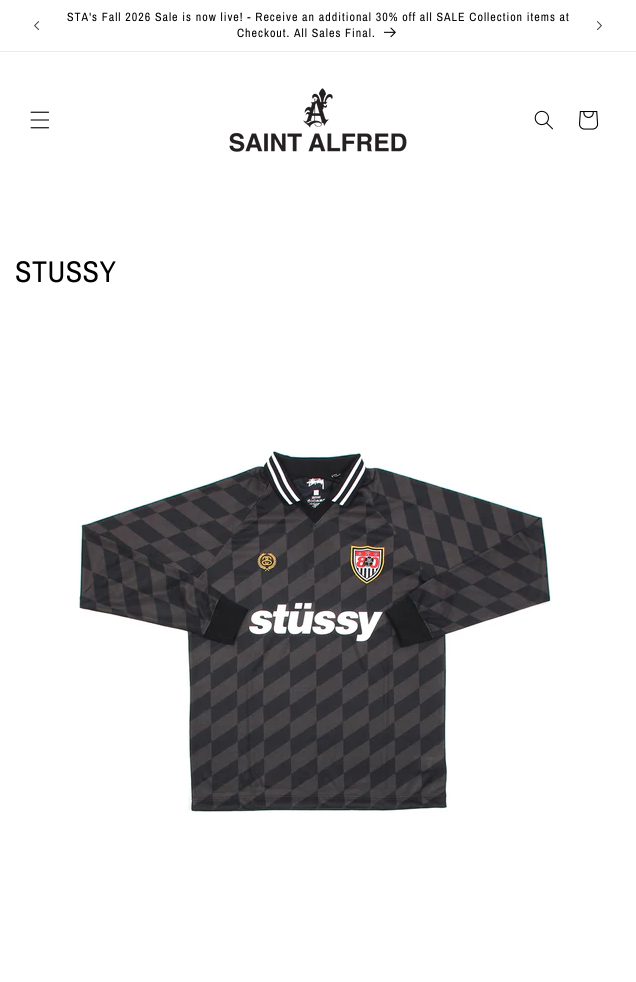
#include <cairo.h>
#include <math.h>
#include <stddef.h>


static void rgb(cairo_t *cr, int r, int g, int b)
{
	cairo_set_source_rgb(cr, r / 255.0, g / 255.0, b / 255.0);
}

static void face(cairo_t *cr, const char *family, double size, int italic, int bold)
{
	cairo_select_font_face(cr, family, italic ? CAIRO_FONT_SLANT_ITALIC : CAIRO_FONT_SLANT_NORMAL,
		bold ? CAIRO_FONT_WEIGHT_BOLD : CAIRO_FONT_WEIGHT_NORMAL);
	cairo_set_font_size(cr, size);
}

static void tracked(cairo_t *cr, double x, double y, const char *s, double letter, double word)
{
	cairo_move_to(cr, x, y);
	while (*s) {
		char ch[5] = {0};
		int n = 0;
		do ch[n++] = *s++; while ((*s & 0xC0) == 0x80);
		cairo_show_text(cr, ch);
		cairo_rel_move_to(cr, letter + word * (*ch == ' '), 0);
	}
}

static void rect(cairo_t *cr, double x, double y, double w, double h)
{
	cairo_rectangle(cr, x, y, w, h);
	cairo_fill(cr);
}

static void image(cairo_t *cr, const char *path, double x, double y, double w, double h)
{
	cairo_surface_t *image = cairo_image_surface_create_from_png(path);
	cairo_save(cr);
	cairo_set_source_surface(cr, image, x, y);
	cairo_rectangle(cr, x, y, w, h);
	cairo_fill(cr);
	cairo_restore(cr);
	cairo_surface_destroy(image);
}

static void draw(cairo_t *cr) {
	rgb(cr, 255, 255, 255);
	cairo_paint(cr);
	rgb(cr, 235, 235, 235);
	rect(cr, 0, 51, 636, 1);
	image(cr, "image0.png", 34, 21, 5, 9);
	face(cr, "Archivo Narrow", 12, 0, 0);
	rgb(cr, 0, 0, 0);
	tracked(cr, 67, 21, "STA's Fall 2026 Sale is now live! - Receive an additional 30% off all SALE Collection items at", 1, 0);
	tracked(cr, 237, 37, "Checkout. All Sales Final.", 1, 0);
	image(cr, "image1.png", 384, 27, 12, 11);
	image(cr, "image2.png", 597, 21, 5, 9);
	image(cr, "image3.png", 30, 111, 20, 18);
	image(cr, "image4.png", 229, 88, 178, 64);
	image(cr, "image5.png", 534, 110, 19, 20);
	image(cr, "image6.png", 579, 111, 20, 19);
	face(cr, "Archivo Narrow", 30, 0, 0);
	tracked(cr, 15, 282, "STUSSY", 0.5, 0);
	image(cr, "image7.png", 77, 450, 476, 363);
}

int main(void) {
	cairo_surface_t *surface = cairo_image_surface_create(CAIRO_FORMAT_RGB24, 636, 982);
	cairo_t *cr = cairo_create(surface);
	cairo_font_options_t *options = cairo_font_options_create();
	cairo_font_options_set_hint_metrics(options, CAIRO_HINT_METRICS_OFF);
	cairo_font_options_set_hint_style(options, CAIRO_HINT_STYLE_NONE);
	cairo_set_font_options(cr, options);
	cairo_set_miter_limit(cr, 4);
	draw(cr);
	cairo_surface_write_to_png(surface, "render.png");
	cairo_font_options_destroy(options);
	cairo_destroy(cr);
	cairo_surface_destroy(surface);
	return 0;
}
